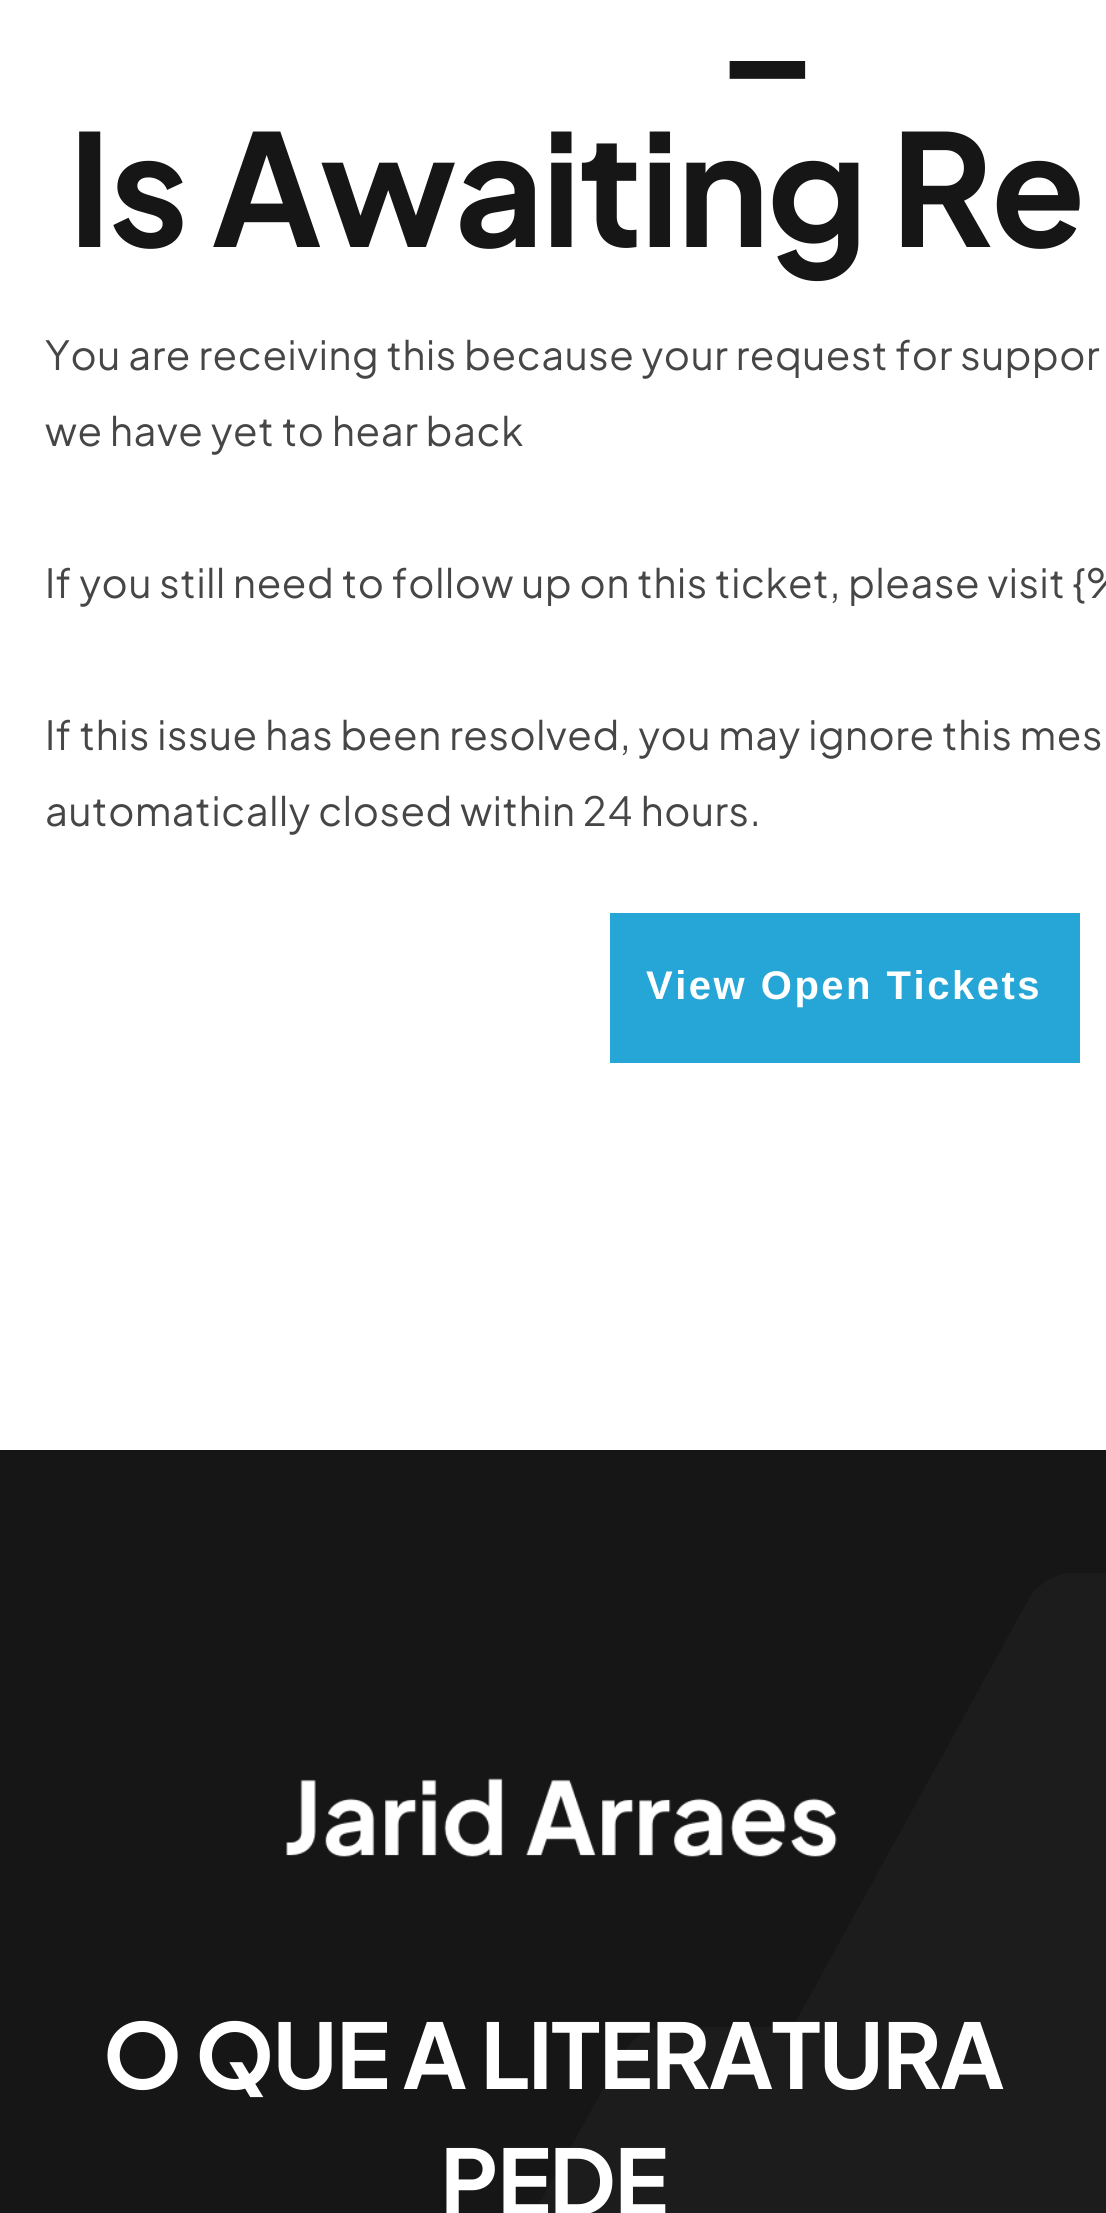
#include <cairo.h>
#include <math.h>
#include <stddef.h>


static void rgb(cairo_t *cr, int r, int g, int b)
{
	cairo_set_source_rgb(cr, r / 255.0, g / 255.0, b / 255.0);
}

static void face(cairo_t *cr, const char *family, double size, int italic, int bold)
{
	cairo_select_font_face(cr, family, italic ? CAIRO_FONT_SLANT_ITALIC : CAIRO_FONT_SLANT_NORMAL,
		bold ? CAIRO_FONT_WEIGHT_BOLD : CAIRO_FONT_WEIGHT_NORMAL);
	cairo_set_font_size(cr, size);
}

static void tracked(cairo_t *cr, double x, double y, const char *s, double letter, double word)
{
	cairo_move_to(cr, x, y);
	while (*s) {
		char ch[5] = {0};
		int n = 0;
		do ch[n++] = *s++; while ((*s & 0xC0) == 0x80);
		cairo_show_text(cr, ch);
		cairo_rel_move_to(cr, letter + word * (*ch == ' '), 0);
	}
}

static void rect(cairo_t *cr, double x, double y, double w, double h)
{
	cairo_rectangle(cr, x, y, w, h);
	cairo_fill(cr);
}

static void image(cairo_t *cr, const char *path, double x, double y, double w, double h)
{
	cairo_surface_t *image = cairo_image_surface_create_from_png(path);
	cairo_save(cr);
	cairo_set_source_surface(cr, image, x, y);
	cairo_rectangle(cr, x, y, w, h);
	cairo_fill(cr);
	cairo_restore(cr);
	cairo_surface_destroy(image);
}

static void draw(cairo_t *cr) {
	rgb(cr, 255, 255, 255);
	cairo_paint(cr);
	face(cr, "Plus Jakarta Sans", 155, 0, 1);
	rgb(cr, 22, 22, 22);
	tracked(cr, 716, 61, "_", -2.3, 0);
	tracked(cr, 68, 247, "Is Awaiting Re", -2.3, 0);
	face(cr, "Plus Jakarta Sans", 40, 0, 0);
	rgb(cr, 70, 70, 70);
	tracked(cr, 45, 370, "You are receiving this because your request for suppor", 0.6, 0);
	tracked(cr, 45, 446, "we have yet to hear back", 0.6, 0);
	tracked(cr, 45, 598, "If you still need to follow up on this ticket, please visit {%", 0.6, 0);
	tracked(cr, 45, 750, "If this issue has been resolved, you may ignore this mes", 0.6, 0);
	tracked(cr, 45, 826, "automatically closed within 24 hours.", 0.6, 0);
	rgb(cr, 38, 166, 214);
	rect(cr, 610, 913, 470, 150);
	face(cr, "Liberation Sans", 40, 0, 1);
	rgb(cr, 255, 255, 255);
	tracked(cr, 646, 999, "View Open Tickets", 2.5, 0);
	rgb(cr, 22, 22, 22);
	rect(cr, 0, 1450, 1106, 763);
	rgb(cr, 28, 28, 28);
	cairo_set_fill_rule(cr, CAIRO_FILL_RULE_EVEN_ODD);
	cairo_new_path(cr);
	cairo_move_to(cr, 624, 2052);
	cairo_curve_to(cr, 632, 2038, 650, 2027, 665, 2027);
	cairo_line_to(cr, 1100, 2027);
	cairo_curve_to(cr, 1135, 2027, 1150, 2053, 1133, 2084);
	cairo_line_to(cr, 870, 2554);
	cairo_line_to(cr, 343, 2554);
	cairo_close_path(cr);
	cairo_move_to(cr, 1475, 1936);
	cairo_curve_to(cr, 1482, 1923, 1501, 1912, 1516, 1912);
	cairo_line_to(cr, 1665, 1912);
	cairo_line_to(cr, 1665, 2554);
	cairo_line_to(cr, 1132, 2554);
	cairo_close_path(cr);
	cairo_fill(cr);
	cairo_set_fill_rule(cr, CAIRO_FILL_RULE_WINDING);
	cairo_new_path(cr);
	cairo_move_to(cr, 1030, 1597);
	cairo_curve_to(cr, 1038, 1584, 1056, 1573, 1072, 1573);
	cairo_line_to(cr, 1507, 1573);
	cairo_curve_to(cr, 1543, 1573, 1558, 1598, 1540, 1629);
	cairo_line_to(cr, 1029, 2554);
	cairo_line_to(cr, 502, 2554);
	cairo_close_path(cr);
	cairo_fill(cr);
	image(cr, "image0.png", 286, 1778, 551, 79);
	face(cr, "Plus Jakarta Sans", 90, 0, 1);
	rgb(cr, 255, 255, 255);
	tracked(cr, 103, 2089, "O QUE A LITERATURA", -1.4, 0);
	tracked(cr, 440, 2215, "PEDE", -1.4, 0);
}

int main(void) {
	cairo_surface_t *surface = cairo_image_surface_create(CAIRO_FORMAT_RGB24, 1106, 2213);
	cairo_t *cr = cairo_create(surface);
	cairo_font_options_t *options = cairo_font_options_create();
	cairo_font_options_set_hint_metrics(options, CAIRO_HINT_METRICS_OFF);
	cairo_font_options_set_hint_style(options, CAIRO_HINT_STYLE_NONE);
	cairo_set_font_options(cr, options);
	cairo_set_miter_limit(cr, 4);
	draw(cr);
	cairo_surface_write_to_png(surface, "render.png");
	cairo_font_options_destroy(options);
	cairo_destroy(cr);
	cairo_surface_destroy(surface);
	return 0;
}
